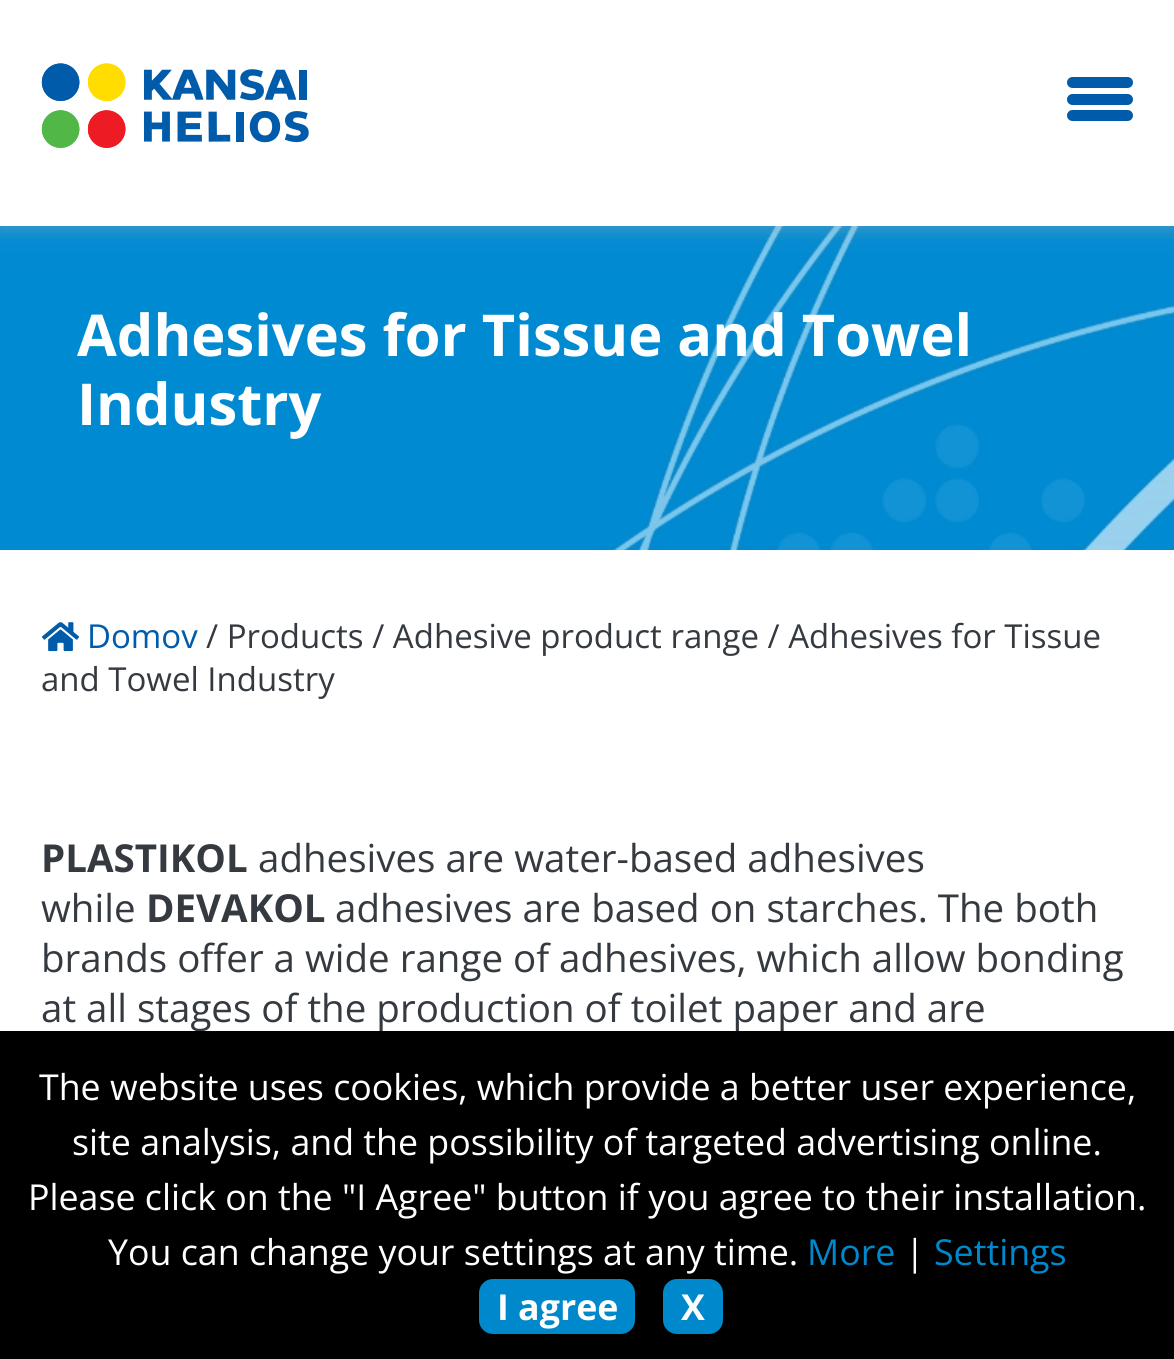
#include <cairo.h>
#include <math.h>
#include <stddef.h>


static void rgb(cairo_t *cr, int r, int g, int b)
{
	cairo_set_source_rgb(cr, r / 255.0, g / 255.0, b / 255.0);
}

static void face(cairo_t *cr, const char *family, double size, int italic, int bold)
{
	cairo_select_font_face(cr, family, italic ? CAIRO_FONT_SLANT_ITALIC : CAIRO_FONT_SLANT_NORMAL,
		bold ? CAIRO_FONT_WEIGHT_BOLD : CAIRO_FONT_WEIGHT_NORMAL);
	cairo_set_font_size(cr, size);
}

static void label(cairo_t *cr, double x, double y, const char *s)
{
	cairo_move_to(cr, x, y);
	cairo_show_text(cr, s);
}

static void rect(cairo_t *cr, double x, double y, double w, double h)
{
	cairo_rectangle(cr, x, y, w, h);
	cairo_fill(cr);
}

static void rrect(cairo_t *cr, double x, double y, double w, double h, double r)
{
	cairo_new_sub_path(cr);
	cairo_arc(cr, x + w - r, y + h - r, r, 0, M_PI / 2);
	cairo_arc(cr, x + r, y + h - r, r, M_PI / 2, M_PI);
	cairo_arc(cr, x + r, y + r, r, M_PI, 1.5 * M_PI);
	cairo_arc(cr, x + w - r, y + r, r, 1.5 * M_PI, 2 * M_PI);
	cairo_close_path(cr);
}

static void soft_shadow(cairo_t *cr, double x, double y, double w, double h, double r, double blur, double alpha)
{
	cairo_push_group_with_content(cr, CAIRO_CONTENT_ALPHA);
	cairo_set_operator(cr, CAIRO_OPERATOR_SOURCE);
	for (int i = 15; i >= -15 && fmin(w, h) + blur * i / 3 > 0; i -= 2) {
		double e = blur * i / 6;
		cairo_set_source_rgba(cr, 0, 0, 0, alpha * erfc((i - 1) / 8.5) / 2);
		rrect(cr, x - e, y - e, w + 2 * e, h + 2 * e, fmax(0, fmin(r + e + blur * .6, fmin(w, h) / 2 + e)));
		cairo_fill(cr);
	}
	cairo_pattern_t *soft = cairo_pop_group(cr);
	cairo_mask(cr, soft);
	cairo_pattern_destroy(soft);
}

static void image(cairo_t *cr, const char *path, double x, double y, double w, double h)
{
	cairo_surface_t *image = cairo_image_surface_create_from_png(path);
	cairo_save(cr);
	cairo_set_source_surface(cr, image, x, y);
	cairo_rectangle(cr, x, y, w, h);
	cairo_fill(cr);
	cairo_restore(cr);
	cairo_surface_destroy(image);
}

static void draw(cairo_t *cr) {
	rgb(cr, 255, 255, 255);
	cairo_paint(cr);
	image(cr, "image1.png", 0, 226, 1174, 324);
	rgb(cr, 176, 182, 186);
	soft_shadow(cr, -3, 0, 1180, 231, 0, 18, 0.15);
	soft_shadow(cr, 0, 3, 1174, 225, 0, 7, 0.3);
	rgb(cr, 255, 255, 255);
	rect(cr, 0, 0, 1174, 226);
	image(cr, "image0.png", 41, 63, 268, 85);
	rgb(cr, 0, 91, 170);
	rrect(cr, 1067, 77, 66, 11, 5.5);
	cairo_fill(cr);
	rrect(cr, 1067, 94, 66, 11, 5.5);
	cairo_fill(cr);
	rrect(cr, 1067, 110, 66, 11, 5.5);
	cairo_fill(cr);
	face(cr, "Open Sans", 57.75, 0, 1);
	rgb(cr, 255, 255, 255);
	label(cr, 77, 356, "Adhesives for Tissue and Towel");
	label(cr, 77, 425, "Industry");
	image(cr, "image2.png", 42, 622, 37, 30);
	face(cr, "Open Sans", 33, 0, 0);
	rgb(cr, 0, 91, 170);
	label(cr, 87, 648, "Domov");
	rgb(cr, 52, 58, 64);
	label(cr, 206, 648, "/ Products / Adhesive product range / Adhesives for Tissue");
	label(cr, 41, 691, "and Towel Industry");
	face(cr, "Open Sans", 38.5, 0, 1);
	label(cr, 41, 872, "PLASTIKOL");
	face(cr, "Open Sans", 38.5, 0, 0);
	label(cr, 258, 872, "adhesives are water-based adhesives");
	label(cr, 41, 922, "while");
	face(cr, "Open Sans", 38.5, 0, 1);
	label(cr, 146, 922, "DEVAKOL");
	face(cr, "Open Sans", 38.5, 0, 0);
	label(cr, 335, 922, "adhesives are based on starches. The both");
	label(cr, 41, 972, "brands offer a wide range of adhesives, which allow bonding");
	label(cr, 41, 1022, "at all stages of the production of toilet paper and are");
	rgb(cr, 0, 0, 0);
	rect(cr, 0, 1031, 1174, 328);
	face(cr, "Open Sans", 35.75, 0, 0);
	rgb(cr, 255, 255, 255);
	label(cr, 39, 1100, "The website uses cookies, which provide a better user experience,");
	label(cr, 72, 1155, "site analysis, and the possibility of targeted advertising online.");
	label(cr, 28, 1210, "Please click on the \"I Agree\" button if you agree to their installation.");
	label(cr, 108, 1265, "You can change your settings at any time.");
	rgb(cr, 0, 136, 204);
	label(cr, 807, 1265, "More");
	rgb(cr, 255, 255, 255);
	label(cr, 905, 1265, "|");
	rgb(cr, 0, 136, 204);
	label(cr, 934, 1265, "Settings");
	rrect(cr, 479, 1279, 156, 55, 14);
	cairo_fill(cr);
	face(cr, "Open Sans", 35.75, 0, 1);
	rgb(cr, 255, 255, 255);
	label(cr, 497, 1320, "I agree");
	rgb(cr, 0, 136, 204);
	rrect(cr, 663, 1279, 60, 55, 14);
	cairo_fill(cr);
	rgb(cr, 255, 255, 255);
	label(cr, 681, 1320, "X");
}

int main(void) {
	cairo_surface_t *surface = cairo_image_surface_create(CAIRO_FORMAT_RGB24, 1174, 1359);
	cairo_t *cr = cairo_create(surface);
	cairo_font_options_t *options = cairo_font_options_create();
	cairo_font_options_set_hint_metrics(options, CAIRO_HINT_METRICS_OFF);
	cairo_font_options_set_hint_style(options, CAIRO_HINT_STYLE_NONE);
	cairo_set_font_options(cr, options);
	cairo_set_miter_limit(cr, 4);
	draw(cr);
	cairo_surface_write_to_png(surface, "render.png");
	cairo_font_options_destroy(options);
	cairo_destroy(cr);
	cairo_surface_destroy(surface);
	return 0;
}
